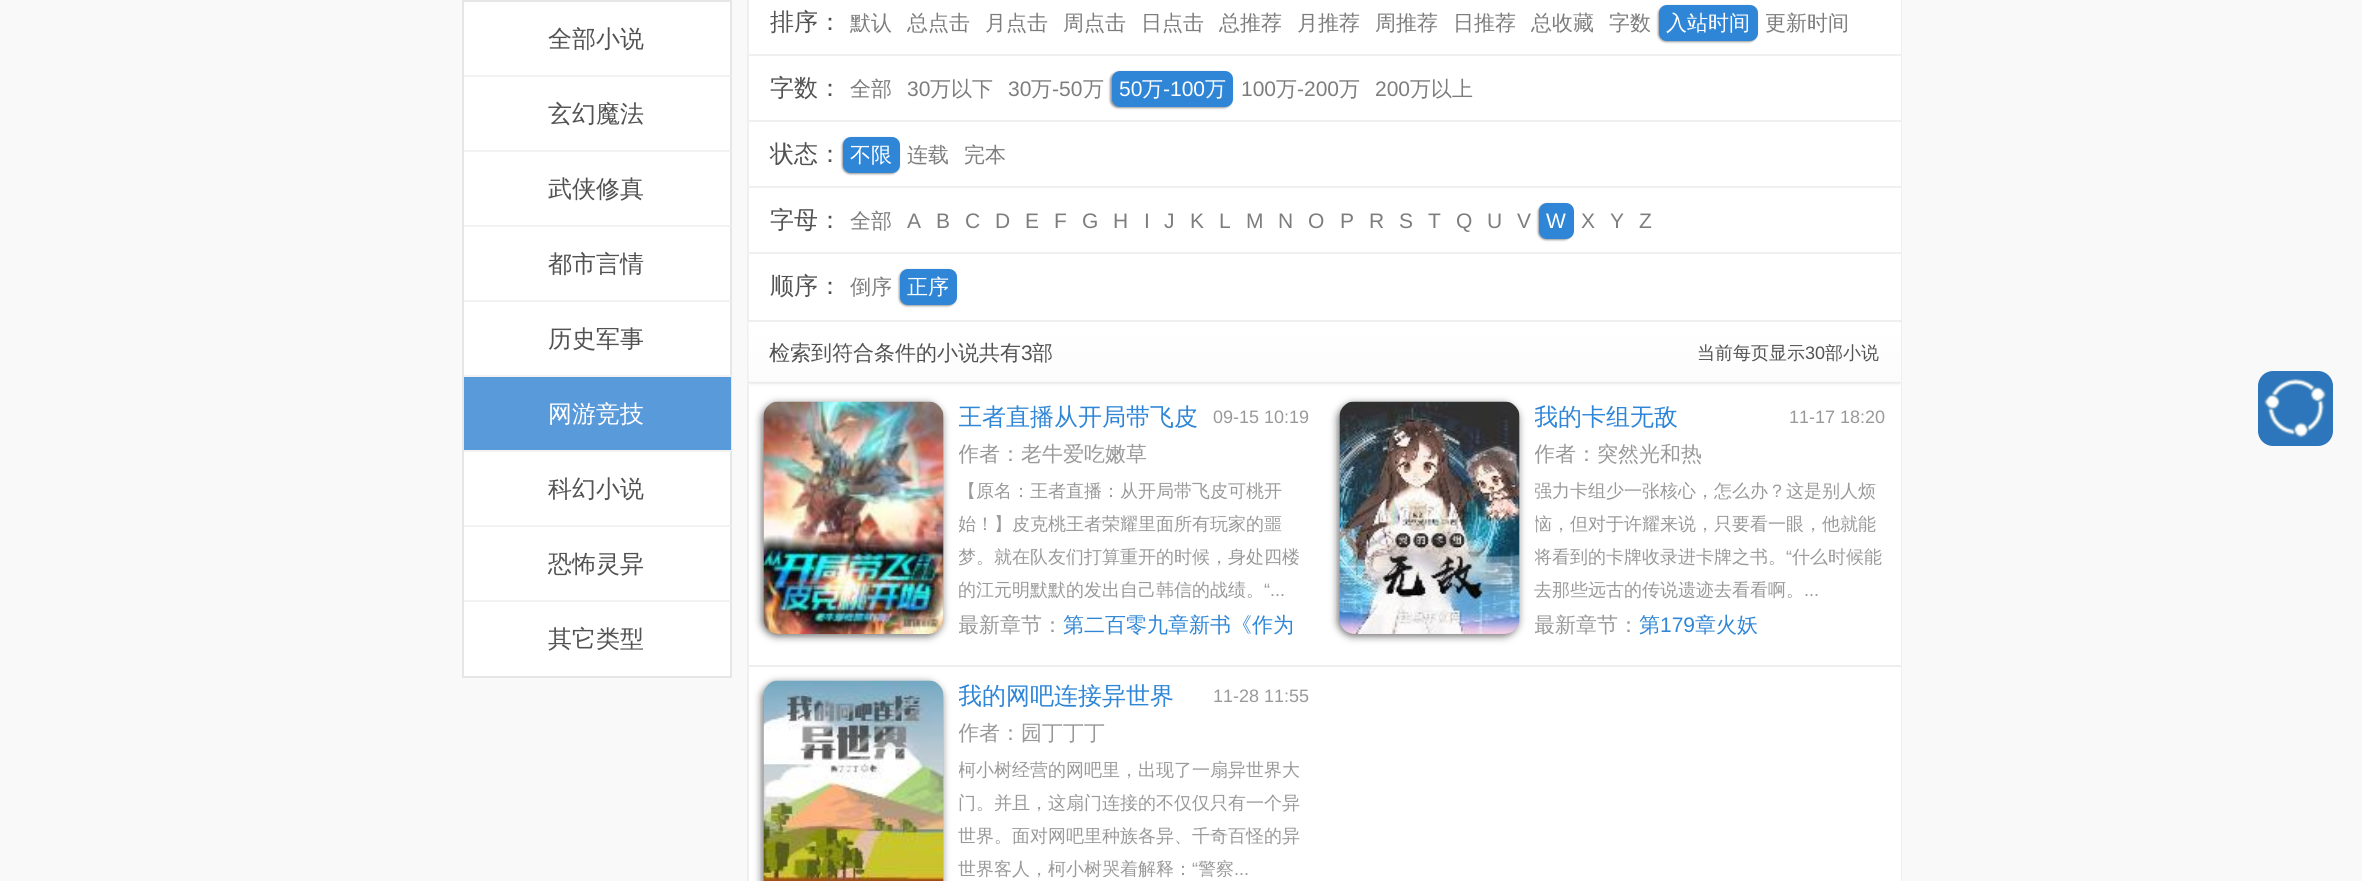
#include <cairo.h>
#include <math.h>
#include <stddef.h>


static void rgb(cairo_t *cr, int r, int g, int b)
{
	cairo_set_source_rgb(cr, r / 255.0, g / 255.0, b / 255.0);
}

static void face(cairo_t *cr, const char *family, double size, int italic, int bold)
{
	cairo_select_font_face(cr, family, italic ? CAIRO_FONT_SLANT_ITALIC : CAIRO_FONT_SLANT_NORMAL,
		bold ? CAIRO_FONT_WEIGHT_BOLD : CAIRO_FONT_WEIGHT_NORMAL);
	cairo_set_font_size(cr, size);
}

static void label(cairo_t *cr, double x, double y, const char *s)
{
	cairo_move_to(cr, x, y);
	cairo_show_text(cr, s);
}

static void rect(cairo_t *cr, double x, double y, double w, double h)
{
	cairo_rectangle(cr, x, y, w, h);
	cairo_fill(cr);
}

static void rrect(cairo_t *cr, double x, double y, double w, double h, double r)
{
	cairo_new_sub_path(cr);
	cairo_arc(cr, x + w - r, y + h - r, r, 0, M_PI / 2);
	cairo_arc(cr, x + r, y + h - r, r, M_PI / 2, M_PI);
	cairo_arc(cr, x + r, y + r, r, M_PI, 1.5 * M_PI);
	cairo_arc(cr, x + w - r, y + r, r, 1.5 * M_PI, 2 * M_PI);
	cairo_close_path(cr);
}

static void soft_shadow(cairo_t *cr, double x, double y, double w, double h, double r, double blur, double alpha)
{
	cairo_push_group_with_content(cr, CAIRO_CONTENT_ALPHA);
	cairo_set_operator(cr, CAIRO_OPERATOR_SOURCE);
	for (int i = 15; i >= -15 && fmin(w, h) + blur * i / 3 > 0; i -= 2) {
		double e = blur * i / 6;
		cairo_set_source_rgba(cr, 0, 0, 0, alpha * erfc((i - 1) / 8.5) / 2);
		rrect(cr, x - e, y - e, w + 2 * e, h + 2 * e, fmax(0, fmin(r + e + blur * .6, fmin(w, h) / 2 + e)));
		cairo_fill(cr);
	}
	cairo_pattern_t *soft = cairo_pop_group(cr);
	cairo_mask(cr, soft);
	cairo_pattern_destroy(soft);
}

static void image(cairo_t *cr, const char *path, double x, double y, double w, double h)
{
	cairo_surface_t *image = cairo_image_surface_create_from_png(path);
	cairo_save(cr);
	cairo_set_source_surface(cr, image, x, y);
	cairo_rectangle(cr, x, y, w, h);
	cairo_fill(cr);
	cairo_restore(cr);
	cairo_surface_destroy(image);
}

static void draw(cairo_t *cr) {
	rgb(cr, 249, 249, 249);
	cairo_paint(cr);
	rgb(cr, 255, 255, 255);
	cairo_rectangle(cr, 463, 1, 268, 676);
	cairo_fill_preserve(cr);
	rgb(cr, 230, 230, 230);
	cairo_stroke(cr);
	face(cr, "WenQuanYi Zen Hei Medium", 24, 0, 0);
	rgb(cr, 82, 82, 82);
	label(cr, 548, 47, "全部小说");
	rgb(cr, 242, 242, 242);
	rect(cr, 464, 75, 267, 2);
	rgb(cr, 82, 82, 82);
	label(cr, 548, 122, "玄幻魔法");
	rgb(cr, 242, 242, 242);
	rect(cr, 464, 150, 267, 2);
	rgb(cr, 82, 82, 82);
	label(cr, 548, 197, "武侠修真");
	rgb(cr, 242, 242, 242);
	rect(cr, 464, 225, 267, 2);
	rgb(cr, 82, 82, 82);
	label(cr, 548, 272, "都市言情");
	rgb(cr, 242, 242, 242);
	rect(cr, 464, 300, 267, 2);
	rgb(cr, 82, 82, 82);
	label(cr, 548, 347, "历史军事");
	rgb(cr, 242, 242, 242);
	rect(cr, 464, 375, 267, 2);
	rgb(cr, 89, 154, 218);
	rect(cr, 464, 377, 267, 73);
	rgb(cr, 255, 255, 255);
	label(cr, 548, 422, "网游竞技");
	rgb(cr, 242, 242, 242);
	rect(cr, 464, 450, 267, 2);
	rgb(cr, 82, 82, 82);
	label(cr, 548, 497, "科幻小说");
	rgb(cr, 242, 242, 242);
	rect(cr, 464, 525, 267, 2);
	rgb(cr, 82, 82, 82);
	label(cr, 548, 572, "恐怖灵异");
	rgb(cr, 242, 242, 242);
	rect(cr, 464, 600, 267, 2);
	rgb(cr, 82, 82, 82);
	label(cr, 548, 647, "其它类型");
	cairo_rectangle(cr, 748, -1, 1153, 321);
	rgb(cr, 239, 239, 239);
	cairo_stroke(cr);
	rgb(cr, 255, 255, 255);
	rect(cr, 749, 0, 1152, 320);
	rgb(cr, 82, 82, 82);
	label(cr, 770, 30, "排序：");
	face(cr, "WenQuanYi Zen Hei Medium", 21, 0, 0);
	rgb(cr, 125, 125, 125);
	label(cr, 850, 30, "默认");
	label(cr, 907, 30, "总点击");
	label(cr, 985, 30, "月点击");
	label(cr, 1063, 30, "周点击");
	label(cr, 1141, 30, "日点击");
	label(cr, 1219, 30, "总推荐");
	label(cr, 1297, 30, "月推荐");
	label(cr, 1375, 30, "周推荐");
	label(cr, 1453, 30, "日推荐");
	label(cr, 1531, 30, "总收藏");
	label(cr, 1609, 30, "字数");
	rgb(cr, 153, 153, 153);
	soft_shadow(cr, 1658, 6, 99, 36, 8, 1, 1);
	rgb(cr, 47, 134, 214);
	rrect(cr, 1659, 5, 99, 36, 8);
	cairo_fill(cr);
	rgb(cr, 255, 255, 255);
	label(cr, 1666, 30, "入站时间");
	rgb(cr, 125, 125, 125);
	label(cr, 1765, 30, "更新时间");
	rgb(cr, 240, 240, 240);
	rect(cr, 749, 54, 1152, 2);
	face(cr, "WenQuanYi Zen Hei Medium", 24, 0, 0);
	rgb(cr, 82, 82, 82);
	label(cr, 770, 96, "字数：");
	face(cr, "WenQuanYi Zen Hei Medium", 21, 0, 0);
	rgb(cr, 125, 125, 125);
	label(cr, 850, 96, "全部");
	face(cr, "Liberation Sans", 21, 0, 0);
	label(cr, 907, 96, "30");
	face(cr, "WenQuanYi Zen Hei Medium", 21, 0, 0);
	label(cr, 930, 96, "万以下");
	face(cr, "Liberation Sans", 21, 0, 0);
	label(cr, 1008, 96, "30");
	face(cr, "WenQuanYi Zen Hei Medium", 21, 0, 0);
	label(cr, 1031, 96, "万");
	face(cr, "Liberation Sans", 21, 0, 0);
	label(cr, 1052, 96, "-50");
	face(cr, "WenQuanYi Zen Hei Medium", 21, 0, 0);
	label(cr, 1083, 96, "万");
	rgb(cr, 153, 153, 153);
	soft_shadow(cr, 1110, 72, 122, 36, 8, 1, 1);
	rgb(cr, 47, 134, 214);
	rrect(cr, 1112, 71, 121, 36, 8);
	cairo_fill(cr);
	face(cr, "Liberation Sans", 21, 0, 0);
	rgb(cr, 255, 255, 255);
	label(cr, 1119, 96, "50");
	face(cr, "WenQuanYi Zen Hei Medium", 21, 0, 0);
	label(cr, 1142, 96, "万");
	face(cr, "Liberation Sans", 21, 0, 0);
	label(cr, 1163, 96, "-100");
	face(cr, "WenQuanYi Zen Hei Medium", 21, 0, 0);
	label(cr, 1205, 96, "万");
	face(cr, "Liberation Sans", 21, 0, 0);
	rgb(cr, 125, 125, 125);
	label(cr, 1241, 96, "100");
	face(cr, "WenQuanYi Zen Hei Medium", 21, 0, 0);
	label(cr, 1276, 96, "万");
	face(cr, "Liberation Sans", 21, 0, 0);
	label(cr, 1297, 96, "-200");
	face(cr, "WenQuanYi Zen Hei Medium", 21, 0, 0);
	label(cr, 1339, 96, "万");
	face(cr, "Liberation Sans", 21, 0, 0);
	label(cr, 1375, 96, "200");
	face(cr, "WenQuanYi Zen Hei Medium", 21, 0, 0);
	label(cr, 1410, 96, "万以上");
	rgb(cr, 240, 240, 240);
	rect(cr, 749, 120, 1152, 2);
	face(cr, "WenQuanYi Zen Hei Medium", 24, 0, 0);
	rgb(cr, 82, 82, 82);
	label(cr, 770, 162, "状态：");
	rgb(cr, 153, 153, 153);
	soft_shadow(cr, 842, 138, 57, 36, 8, 1, 1);
	rgb(cr, 47, 134, 214);
	rrect(cr, 843, 137, 57, 36, 8);
	cairo_fill(cr);
	face(cr, "WenQuanYi Zen Hei Medium", 21, 0, 0);
	rgb(cr, 255, 255, 255);
	label(cr, 850, 162, "不限");
	rgb(cr, 125, 125, 125);
	label(cr, 907, 162, "连载");
	label(cr, 964, 162, "完本");
	rgb(cr, 240, 240, 240);
	rect(cr, 749, 186, 1152, 2);
	face(cr, "WenQuanYi Zen Hei Medium", 24, 0, 0);
	rgb(cr, 82, 82, 82);
	label(cr, 770, 228, "字母：");
	face(cr, "WenQuanYi Zen Hei Medium", 21, 0, 0);
	rgb(cr, 125, 125, 125);
	label(cr, 850, 228, "全部");
	face(cr, "Liberation Sans", 21, 0, 0);
	label(cr, 907, 228, "A");
	label(cr, 936, 228, "B");
	label(cr, 965, 228, "C");
	label(cr, 995, 228, "D");
	label(cr, 1025, 228, "E");
	label(cr, 1054, 228, "F");
	label(cr, 1082, 228, "G");
	label(cr, 1113, 228, "H");
	label(cr, 1144, 228, "I");
	label(cr, 1164, 228, "J");
	label(cr, 1190, 228, "K");
	label(cr, 1219, 228, "L");
	label(cr, 1246, 228, "M");
	label(cr, 1278, 228, "N");
	label(cr, 1308, 228, "O");
	label(cr, 1340, 228, "P");
	label(cr, 1369, 228, "R");
	label(cr, 1399, 228, "S");
	label(cr, 1428, 228, "T");
	label(cr, 1456, 228, "Q");
	label(cr, 1487, 228, "U");
	label(cr, 1517, 228, "V");
	rgb(cr, 153, 153, 153);
	soft_shadow(cr, 1538, 204, 34, 36, 8, 1, 1);
	rgb(cr, 47, 134, 214);
	rrect(cr, 1539, 203, 35, 36, 8);
	cairo_fill(cr);
	rgb(cr, 255, 255, 255);
	label(cr, 1546, 228, "W");
	rgb(cr, 125, 125, 125);
	label(cr, 1581, 228, "X");
	label(cr, 1610, 228, "Y");
	label(cr, 1639, 228, "Z");
	rgb(cr, 240, 240, 240);
	rect(cr, 749, 252, 1152, 2);
	face(cr, "WenQuanYi Zen Hei Medium", 24, 0, 0);
	rgb(cr, 82, 82, 82);
	label(cr, 770, 294, "顺序：");
	face(cr, "WenQuanYi Zen Hei Medium", 21, 0, 0);
	rgb(cr, 125, 125, 125);
	label(cr, 850, 294, "倒序");
	rgb(cr, 153, 153, 153);
	soft_shadow(cr, 899, 270, 57, 36, 8, 1, 1);
	rgb(cr, 47, 134, 214);
	rrect(cr, 900, 269, 57, 36, 8);
	cairo_fill(cr);
	rgb(cr, 255, 255, 255);
	label(cr, 907, 294, "正序");
	cairo_rectangle(cr, 748, 322, 1153, 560);
	rgb(cr, 239, 239, 239);
	cairo_stroke(cr);
	rgb(cr, 255, 255, 255);
	rect(cr, 749, 323, 1152, 558);
	image(cr, "image0.png", 748, 322, 1153, 64);
	rgb(cr, 82, 82, 82);
	label(cr, 769, 360, "检索到符合条件的小说共有");
	face(cr, "Liberation Sans", 21, 0, 0);
	label(cr, 1021, 360, "3");
	face(cr, "WenQuanYi Zen Hei Medium", 21, 0, 0);
	label(cr, 1032, 360, "部");
	face(cr, "WenQuanYi Zen Hei Medium", 18, 0, 0);
	label(cr, 1697, 359, "当前每页显示");
	face(cr, "Liberation Sans", 18, 0, 0);
	label(cr, 1805, 359, "30");
	face(cr, "WenQuanYi Zen Hei Medium", 18, 0, 0);
	label(cr, 1825, 359, "部小说");
	rgb(cr, 238, 238, 238);
	rect(cr, 749, 665, 1152, 2);
	rgb(cr, 102, 102, 102);
	soft_shadow(cr, 762, 404, 180, 232, 15, 4, 1);
	image(cr, "image1.png", 763, 401, 181, 233);
	cairo_save(cr);
	cairo_rectangle(cr, 959, 402, 351, 36);
	cairo_clip(cr);
	face(cr, "WenQuanYi Zen Hei Medium", 24, 0, 0);
	rgb(cr, 47, 134, 214);
	label(cr, 958, 425, "王者直播从开局带飞皮");
	cairo_restore(cr);
	face(cr, "Liberation Sans", 18, 0, 0);
	rgb(cr, 153, 153, 153);
	label(cr, 1213, 423, "09-15 10:19");
	cairo_save(cr);
	cairo_rectangle(cr, 959, 438, 351, 36);
	cairo_clip(cr);
	face(cr, "WenQuanYi Zen Hei Medium", 21, 0, 0);
	label(cr, 958, 461, "作者：");
	cairo_restore(cr);
	face(cr, "WenQuanYi Zen Hei Medium", 21, 0, 0);
	label(cr, 1021, 461, "老牛爱吃嫩草");
	face(cr, "WenQuanYi Zen Hei Medium", 18, 0, 0);
	label(cr, 958, 497, "【原名：王者直播：从开局带飞皮可桃开");
	cairo_save(cr);
	cairo_rectangle(cr, 959, 474, 351, 135);
	cairo_clip(cr);
	label(cr, 958, 530, "始！】皮克桃王者荣耀里面所有玩家的噩");
	label(cr, 958, 563, "梦。就在队友们打算重开的时候，身处四楼");
	cairo_restore(cr);
	label(cr, 958, 596, "的江元明默默的发出自己韩信的战绩。");
	face(cr, "Liberation Sans", 18, 0, 0);
	label(cr, 1264, 596, "“...");
	cairo_save(cr);
	cairo_rectangle(cr, 959, 609, 351, 36);
	cairo_clip(cr);
	face(cr, "WenQuanYi Zen Hei Medium", 21, 0, 0);
	label(cr, 958, 632, "最新章节：");
	cairo_restore(cr);
	face(cr, "WenQuanYi Zen Hei Medium", 21, 0, 0);
	rgb(cr, 47, 134, 214);
	label(cr, 1063, 632, "第二百零九章新书《作为");
	rgb(cr, 102, 102, 102);
	soft_shadow(cr, 1338, 404, 180, 232, 15, 4, 1);
	image(cr, "image2.png", 1339, 401, 181, 233);
	cairo_save(cr);
	cairo_rectangle(cr, 1535, 402, 351, 36);
	cairo_clip(cr);
	face(cr, "WenQuanYi Zen Hei Medium", 24, 0, 0);
	rgb(cr, 47, 134, 214);
	label(cr, 1534, 425, "我的卡组无敌");
	cairo_restore(cr);
	face(cr, "Liberation Sans", 18, 0, 0);
	rgb(cr, 153, 153, 153);
	label(cr, 1789, 423, "11-17 18:20");
	cairo_save(cr);
	cairo_rectangle(cr, 1535, 438, 351, 36);
	cairo_clip(cr);
	face(cr, "WenQuanYi Zen Hei Medium", 21, 0, 0);
	label(cr, 1534, 461, "作者：");
	cairo_restore(cr);
	face(cr, "WenQuanYi Zen Hei Medium", 21, 0, 0);
	label(cr, 1597, 461, "突然光和热");
	cairo_save(cr);
	cairo_rectangle(cr, 1535, 474, 351, 135);
	cairo_clip(cr);
	face(cr, "WenQuanYi Zen Hei Medium", 18, 0, 0);
	label(cr, 1534, 497, "强力卡组少一张核心，怎么办？这是别人烦");
	label(cr, 1534, 530, "恼，但对于许耀来说，只要看一眼，他就能");
	label(cr, 1534, 563, "将看到的卡牌收录进卡牌之书。");
	cairo_restore(cr);
	face(cr, "Liberation Sans", 18, 0, 0);
	label(cr, 1786, 563, "“");
	face(cr, "WenQuanYi Zen Hei Medium", 18, 0, 0);
	label(cr, 1792, 563, "什么时候能");
	label(cr, 1534, 596, "去那些远古的传说遗迹去看看啊。");
	face(cr, "Liberation Sans", 18, 0, 0);
	label(cr, 1804, 596, "...");
	cairo_save(cr);
	cairo_rectangle(cr, 1535, 609, 351, 36);
	cairo_clip(cr);
	face(cr, "WenQuanYi Zen Hei Medium", 21, 0, 0);
	label(cr, 1534, 632, "最新章节：");
	cairo_restore(cr);
	face(cr, "WenQuanYi Zen Hei Medium", 21, 0, 0);
	rgb(cr, 47, 134, 214);
	label(cr, 1639, 632, "第");
	face(cr, "Liberation Sans", 21, 0, 0);
	label(cr, 1660, 632, "179");
	face(cr, "WenQuanYi Zen Hei Medium", 21, 0, 0);
	label(cr, 1695, 632, "章火妖");
	rgb(cr, 102, 102, 102);
	soft_shadow(cr, 762, 683, 180, 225, 15, 4, 1);
	image(cr, "image3.png", 763, 680, 181, 201);
	cairo_save(cr);
	cairo_rectangle(cr, 959, 681, 351, 36);
	cairo_clip(cr);
	face(cr, "WenQuanYi Zen Hei Medium", 24, 0, 0);
	rgb(cr, 47, 134, 214);
	label(cr, 958, 704, "我的网吧连接异世界");
	cairo_restore(cr);
	face(cr, "Liberation Sans", 18, 0, 0);
	rgb(cr, 153, 153, 153);
	label(cr, 1213, 702, "11-28 11:55");
	cairo_save(cr);
	cairo_rectangle(cr, 959, 717, 351, 36);
	cairo_clip(cr);
	face(cr, "WenQuanYi Zen Hei Medium", 21, 0, 0);
	label(cr, 958, 740, "作者：");
	cairo_restore(cr);
	face(cr, "WenQuanYi Zen Hei Medium", 21, 0, 0);
	label(cr, 1021, 740, "园丁丁丁");
	cairo_save(cr);
	cairo_rectangle(cr, 959, 753, 351, 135);
	cairo_clip(cr);
	face(cr, "WenQuanYi Zen Hei Medium", 18, 0, 0);
	label(cr, 958, 776, "柯小树经营的网吧里，出现了一扇异世界大");
	cairo_restore(cr);
	face(cr, "WenQuanYi Zen Hei Medium", 18, 0, 0);
	label(cr, 958, 809, "门。并且，这扇门连接的不仅仅只有一个异");
	label(cr, 958, 842, "世界。面对网吧里种族各异、千奇百怪的异");
	label(cr, 958, 875, "世界客人，柯小树哭着解释：");
	face(cr, "Liberation Sans", 18, 0, 0);
	label(cr, 1192, 875, "“");
	face(cr, "WenQuanYi Zen Hei Medium", 18, 0, 0);
	label(cr, 1198, 875, "警察");
	face(cr, "Liberation Sans", 18, 0, 0);
	label(cr, 1234, 875, "...");
	rgb(cr, 45, 118, 187);
	rrect(cr, 2258, 371, 75, 75, 15);
	cairo_fill(cr);
	image(cr, "image4.png", 2264, 378, 62, 60);
}

int main(void) {
	cairo_surface_t *surface = cairo_image_surface_create(CAIRO_FORMAT_RGB24, 2362, 881);
	cairo_t *cr = cairo_create(surface);
	cairo_font_options_t *options = cairo_font_options_create();
	cairo_font_options_set_hint_metrics(options, CAIRO_HINT_METRICS_OFF);
	cairo_font_options_set_hint_style(options, CAIRO_HINT_STYLE_NONE);
	cairo_set_font_options(cr, options);
	cairo_set_miter_limit(cr, 4);
	draw(cr);
	cairo_surface_write_to_png(surface, "render.png");
	cairo_font_options_destroy(options);
	cairo_destroy(cr);
	cairo_surface_destroy(surface);
	return 0;
}
